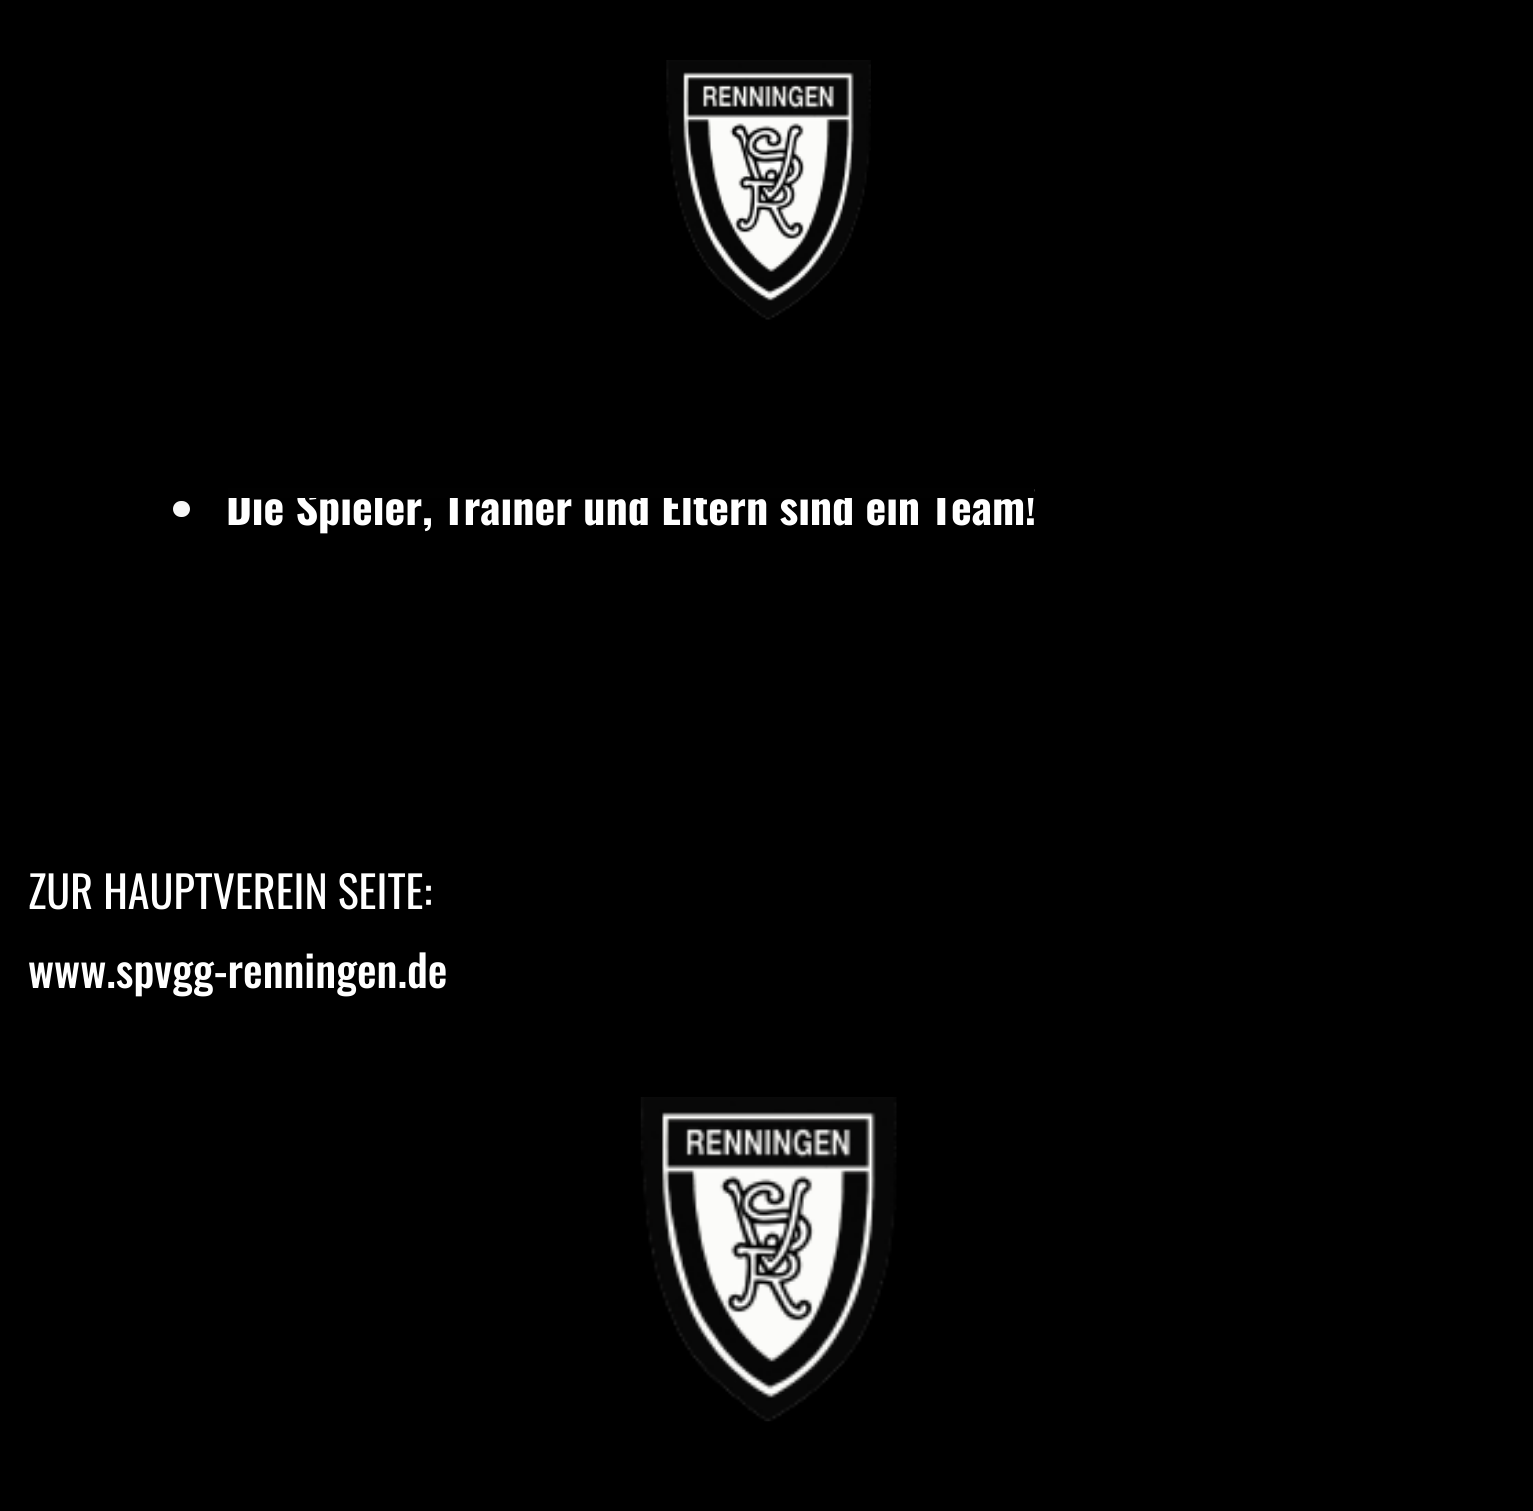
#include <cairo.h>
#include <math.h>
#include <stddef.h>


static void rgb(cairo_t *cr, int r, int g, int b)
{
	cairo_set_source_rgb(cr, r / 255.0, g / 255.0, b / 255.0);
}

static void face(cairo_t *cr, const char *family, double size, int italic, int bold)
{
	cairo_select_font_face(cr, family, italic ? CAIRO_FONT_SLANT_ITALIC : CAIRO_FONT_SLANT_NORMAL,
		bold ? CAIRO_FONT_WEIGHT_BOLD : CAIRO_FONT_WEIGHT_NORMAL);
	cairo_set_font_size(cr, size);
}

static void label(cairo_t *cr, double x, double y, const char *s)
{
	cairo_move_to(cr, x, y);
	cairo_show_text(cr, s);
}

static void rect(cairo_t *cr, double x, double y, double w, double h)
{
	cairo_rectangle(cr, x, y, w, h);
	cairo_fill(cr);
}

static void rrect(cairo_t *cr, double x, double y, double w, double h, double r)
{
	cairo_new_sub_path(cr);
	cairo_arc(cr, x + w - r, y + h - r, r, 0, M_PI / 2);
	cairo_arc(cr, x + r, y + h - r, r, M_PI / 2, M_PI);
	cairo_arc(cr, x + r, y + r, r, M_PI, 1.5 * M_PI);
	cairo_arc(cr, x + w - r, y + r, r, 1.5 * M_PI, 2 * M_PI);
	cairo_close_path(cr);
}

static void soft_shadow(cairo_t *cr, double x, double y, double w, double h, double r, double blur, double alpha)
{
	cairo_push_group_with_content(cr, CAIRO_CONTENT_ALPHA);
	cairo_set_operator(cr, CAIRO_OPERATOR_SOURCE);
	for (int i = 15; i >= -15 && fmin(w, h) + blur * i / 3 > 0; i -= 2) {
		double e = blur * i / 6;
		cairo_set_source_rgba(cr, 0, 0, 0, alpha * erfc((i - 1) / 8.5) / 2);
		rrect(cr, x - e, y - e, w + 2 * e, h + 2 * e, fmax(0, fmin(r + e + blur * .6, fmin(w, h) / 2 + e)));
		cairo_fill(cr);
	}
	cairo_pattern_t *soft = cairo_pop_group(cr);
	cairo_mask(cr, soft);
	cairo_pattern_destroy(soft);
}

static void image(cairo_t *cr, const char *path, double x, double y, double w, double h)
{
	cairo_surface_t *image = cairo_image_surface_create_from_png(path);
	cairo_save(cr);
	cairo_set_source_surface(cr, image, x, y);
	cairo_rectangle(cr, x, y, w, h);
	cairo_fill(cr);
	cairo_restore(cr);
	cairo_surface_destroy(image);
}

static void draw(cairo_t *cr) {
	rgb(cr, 0, 0, 0);
	cairo_paint(cr);
	rgb(cr, 255, 255, 255);
	rrect(cr, 173, 501, 17, 16, 8);
	cairo_fill(cr);
	rgb(cr, 0, 0, 0);
	soft_shadow(cr, -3, 8, 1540, 504, 0, 45.5, 0.07);
	face(cr, "Oswald", 44, 0, 1);
	rgb(cr, 255, 255, 255);
	label(cr, 226, 525, "Die Spieler, Trainer und Eltern sind ein Team!");
	rgb(cr, 1, 1, 1);
	rect(cr, 228, 488, 806, 10);
	image(cr, "image0.png", 666, 60, 205, 260);
	face(cr, "Oswald", 44, 0, 0);
	rgb(cr, 255, 255, 255);
	label(cr, 28, 909, "ZUR HAUPTVEREIN SEITE:");
	face(cr, "Oswald Medium", 44, 0, 0);
	label(cr, 28, 988, "www.spvgg-renningen.de");
	image(cr, "image1.png", 640, 1097, 257, 325);
}

int main(void) {
	cairo_surface_t *surface = cairo_image_surface_create(CAIRO_FORMAT_RGB24, 1533, 1511);
	cairo_t *cr = cairo_create(surface);
	cairo_font_options_t *options = cairo_font_options_create();
	cairo_font_options_set_hint_metrics(options, CAIRO_HINT_METRICS_OFF);
	cairo_font_options_set_hint_style(options, CAIRO_HINT_STYLE_NONE);
	cairo_set_font_options(cr, options);
	cairo_set_miter_limit(cr, 4);
	draw(cr);
	cairo_surface_write_to_png(surface, "render.png");
	cairo_font_options_destroy(options);
	cairo_destroy(cr);
	cairo_surface_destroy(surface);
	return 0;
}
